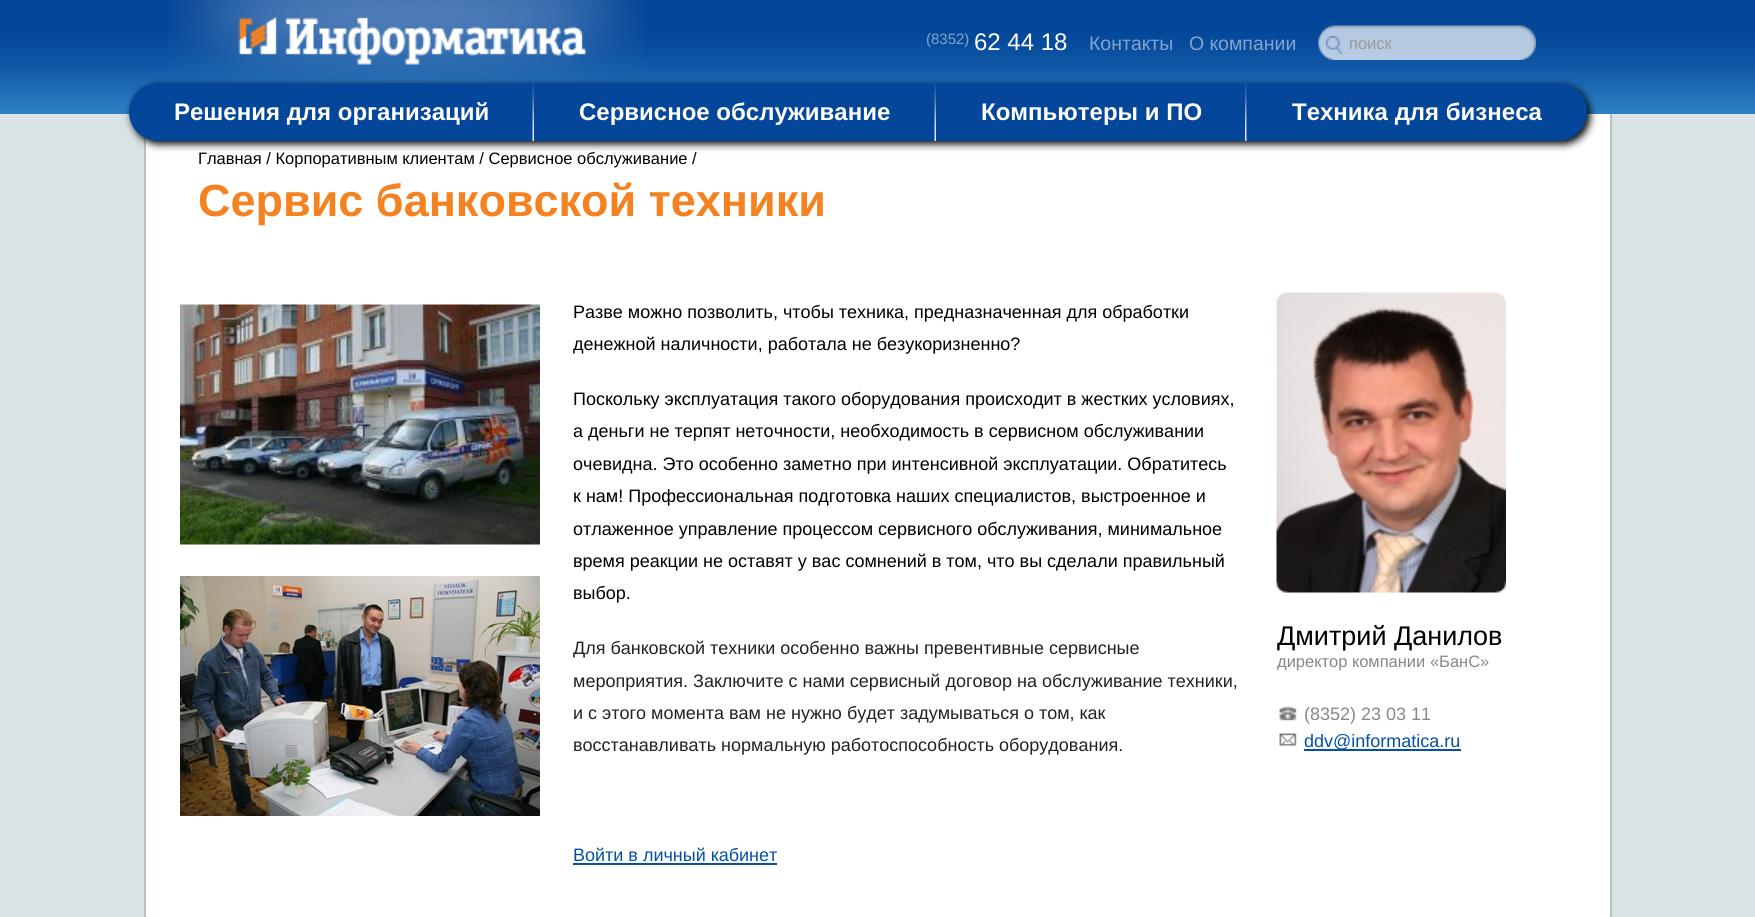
#include <cairo.h>
#include <math.h>
#include <stddef.h>


static void rgb(cairo_t *cr, int r, int g, int b)
{
	cairo_set_source_rgb(cr, r / 255.0, g / 255.0, b / 255.0);
}

static void face(cairo_t *cr, const char *family, double size, int italic, int bold)
{
	cairo_select_font_face(cr, family, italic ? CAIRO_FONT_SLANT_ITALIC : CAIRO_FONT_SLANT_NORMAL,
		bold ? CAIRO_FONT_WEIGHT_BOLD : CAIRO_FONT_WEIGHT_NORMAL);
	cairo_set_font_size(cr, size);
}

static void label(cairo_t *cr, double x, double y, const char *s)
{
	cairo_move_to(cr, x, y);
	cairo_show_text(cr, s);
}

static void rect(cairo_t *cr, double x, double y, double w, double h)
{
	cairo_rectangle(cr, x, y, w, h);
	cairo_fill(cr);
}

static void rrect(cairo_t *cr, double x, double y, double w, double h, double r)
{
	cairo_new_sub_path(cr);
	cairo_arc(cr, x + w - r, y + h - r, r, 0, M_PI / 2);
	cairo_arc(cr, x + r, y + h - r, r, M_PI / 2, M_PI);
	cairo_arc(cr, x + r, y + r, r, M_PI, 1.5 * M_PI);
	cairo_arc(cr, x + w - r, y + r, r, 1.5 * M_PI, 2 * M_PI);
	cairo_close_path(cr);
}

static void soft_shadow(cairo_t *cr, double x, double y, double w, double h, double r, double blur, double alpha)
{
	cairo_push_group_with_content(cr, CAIRO_CONTENT_ALPHA);
	cairo_set_operator(cr, CAIRO_OPERATOR_SOURCE);
	for (int i = 15; i >= -15 && fmin(w, h) + blur * i / 3 > 0; i -= 2) {
		double e = blur * i / 6;
		cairo_set_source_rgba(cr, 0, 0, 0, alpha * erfc((i - 1) / 8.5) / 2);
		rrect(cr, x - e, y - e, w + 2 * e, h + 2 * e, fmax(0, fmin(r + e + blur * .6, fmin(w, h) / 2 + e)));
		cairo_fill(cr);
	}
	cairo_pattern_t *soft = cairo_pop_group(cr);
	cairo_mask(cr, soft);
	cairo_pattern_destroy(soft);
}

static void image(cairo_t *cr, const char *path, double x, double y, double w, double h)
{
	cairo_surface_t *image = cairo_image_surface_create_from_png(path);
	cairo_save(cr);
	cairo_set_source_surface(cr, image, x, y);
	cairo_rectangle(cr, x, y, w, h);
	cairo_fill(cr);
	cairo_restore(cr);
	cairo_surface_destroy(image);
}

static void draw(cairo_t *cr) {
	rgb(cr, 217, 226, 229);
	cairo_paint(cr);
	image(cr, "image0.png", 0, 0, 1755, 114);
	image(cr, "image1.png", 169, 0, 475, 83);
	face(cr, "Liberation Sans", 15, 0, 0);
	rgb(cr, 130, 164, 205);
	label(cr, 926, 44, "(8352)");
	face(cr, "Liberation Sans", 24, 0, 0);
	rgb(cr, 255, 255, 255);
	label(cr, 974, 50, "62 44 18");
	face(cr, "Liberation Sans", 19.5, 0, 0);
	rgb(cr, 130, 164, 205);
	label(cr, 1089, 50, "Контакты");
	label(cr, 1189, 50, "О компании");
	image(cr, "image3.png", 1318, 25, 218, 35);
	image(cr, "image2.png", 1326, 36, 17, 18);
	face(cr, "Liberation Sans", 16.5, 0, 0);
	rgb(cr, 153, 153, 153);
	label(cr, 1349, 49, "поиск");
	rgb(cr, 255, 255, 255);
	rect(cr, 146, 114, 1464, 803);
	rgb(cr, 184, 191, 194);
	rect(cr, 144, 137, 2, 780);
	rgb(cr, 0, 0, 0);
	soft_shadow(cr, 132, 86, 1458, 58, 29, 4, 1);
	rgb(cr, 4, 70, 153);
	cairo_new_path(cr);
	cairo_move_to(cr, 158, 83);
	cairo_line_to(cr, 534, 83);
	cairo_line_to(cr, 534, 141);
	cairo_line_to(cr, 158, 141);
	cairo_curve_to(cr, 142, 141, 129, 128, 129, 112);
	cairo_curve_to(cr, 129, 96, 142, 83, 158, 83);
	cairo_close_path(cr);
	cairo_fill(cr);
	image(cr, "image4.png", 532, 83, 2, 58);
	face(cr, "Liberation Sans", 24, 0, 1);
	rgb(cr, 255, 255, 255);
	label(cr, 174, 120, "Решения для организаций");
	rgb(cr, 4, 70, 153);
	rect(cr, 534, 83, 713, 58);
	image(cr, "image5.png", 934, 82, 2, 59);
	rgb(cr, 255, 255, 255);
	label(cr, 579, 120, "Сервисное обслуживание");
	image(cr, "image6.png", 1245, 82, 2, 59);
	label(cr, 981, 120, "Компьютеры и ПО");
	rgb(cr, 4, 70, 153);
	cairo_new_path(cr);
	cairo_move_to(cr, 1247, 83);
	cairo_line_to(cr, 1558, 83);
	cairo_curve_to(cr, 1574, 83, 1587, 96, 1587, 112);
	cairo_curve_to(cr, 1587, 128, 1574, 141, 1558, 141);
	cairo_line_to(cr, 1247, 141);
	cairo_close_path(cr);
	cairo_fill(cr);
	rgb(cr, 255, 255, 255);
	label(cr, 1292, 120, "Техника для бизнеса");
	rgb(cr, 184, 191, 194);
	rect(cr, 1610, 114, 2, 803);
	face(cr, "Liberation Sans", 16.5, 0, 0);
	rgb(cr, 0, 0, 0);
	label(cr, 198, 164, "Главная / Корпоративным клиентам / Сервисное обслуживание /");
	face(cr, "Liberation Sans", 45, 0, 1);
	rgb(cr, 245, 130, 32);
	label(cr, 198, 216, "Сервис банковской техники");
	image(cr, "image7.png", 180, 304, 360, 241);
	image(cr, "image8.png", 180, 576, 360, 240);
	face(cr, "Liberation Sans", 18, 0, 0);
	rgb(cr, 0, 0, 0);
	label(cr, 573, 318, "Разве можно позволить, чтобы техника, предназначенная для обработки");
	label(cr, 573, 350, "денежной наличности, работала не безукоризненно?");
	label(cr, 573, 405, "Поскольку эксплуатация такого оборудования происходит в жестких условиях,");
	label(cr, 573, 437, "а деньги не терпят неточности, необходимость в сервисном обслуживании");
	label(cr, 573, 470, "очевидна. Это особенно заметно при интенсивной эксплуатации. Обратитесь");
	label(cr, 573, 502, "к нам! Профессиональная подготовка наших специалистов, выстроенное и");
	label(cr, 573, 535, "отлаженное управление процессом сервисного обслуживания, минимальное");
	label(cr, 573, 567, "время реакции не оставят у вас сомнений в том, что вы сделали правильный");
	label(cr, 573, 599, "выбор.");
	rgb(cr, 34, 34, 34);
	label(cr, 573, 654, "Для банковской техники особенно важны превентивные сервисные");
	label(cr, 573, 687, "мероприятия. Заключите с нами сервисный договор на обслуживание техники,");
	label(cr, 573, 719, "и с этого момента вам не нужно будет задумываться о том, как");
	label(cr, 573, 751, "восстанавливать нормальную работоспособность оборудования.");
	rgb(cr, 4, 80, 164);
	label(cr, 573, 861, "Войти в личный кабинет");
	rect(cr, 573, 863, 204, 2);
	image(cr, "image9.png", 1276, 292, 230, 301);
	face(cr, "Liberation Sans", 27, 0, 0);
	rgb(cr, 0, 0, 0);
	label(cr, 1277, 645, "Дмитрий Данилов");
	face(cr, "Liberation Sans", 16.5, 0, 0);
	rgb(cr, 135, 135, 135);
	label(cr, 1277, 667, "директор компании «БанС»");
	image(cr, "image10.png", 1279, 706, 18, 15);
	face(cr, "Liberation Sans", 18, 0, 0);
	label(cr, 1304, 720, "(8352) 23 03 11");
	image(cr, "image11.png", 1279, 733, 18, 13);
	rgb(cr, 4, 80, 164);
	rect(cr, 1304, 749, 157, 2);
	label(cr, 1304, 747, "ddv@informatica.ru");
}

int main(void) {
	cairo_surface_t *surface = cairo_image_surface_create(CAIRO_FORMAT_RGB24, 1755, 917);
	cairo_t *cr = cairo_create(surface);
	cairo_font_options_t *options = cairo_font_options_create();
	cairo_font_options_set_hint_metrics(options, CAIRO_HINT_METRICS_OFF);
	cairo_font_options_set_hint_style(options, CAIRO_HINT_STYLE_NONE);
	cairo_set_font_options(cr, options);
	cairo_set_miter_limit(cr, 4);
	draw(cr);
	cairo_surface_write_to_png(surface, "render.png");
	cairo_font_options_destroy(options);
	cairo_destroy(cr);
	cairo_surface_destroy(surface);
	return 0;
}
